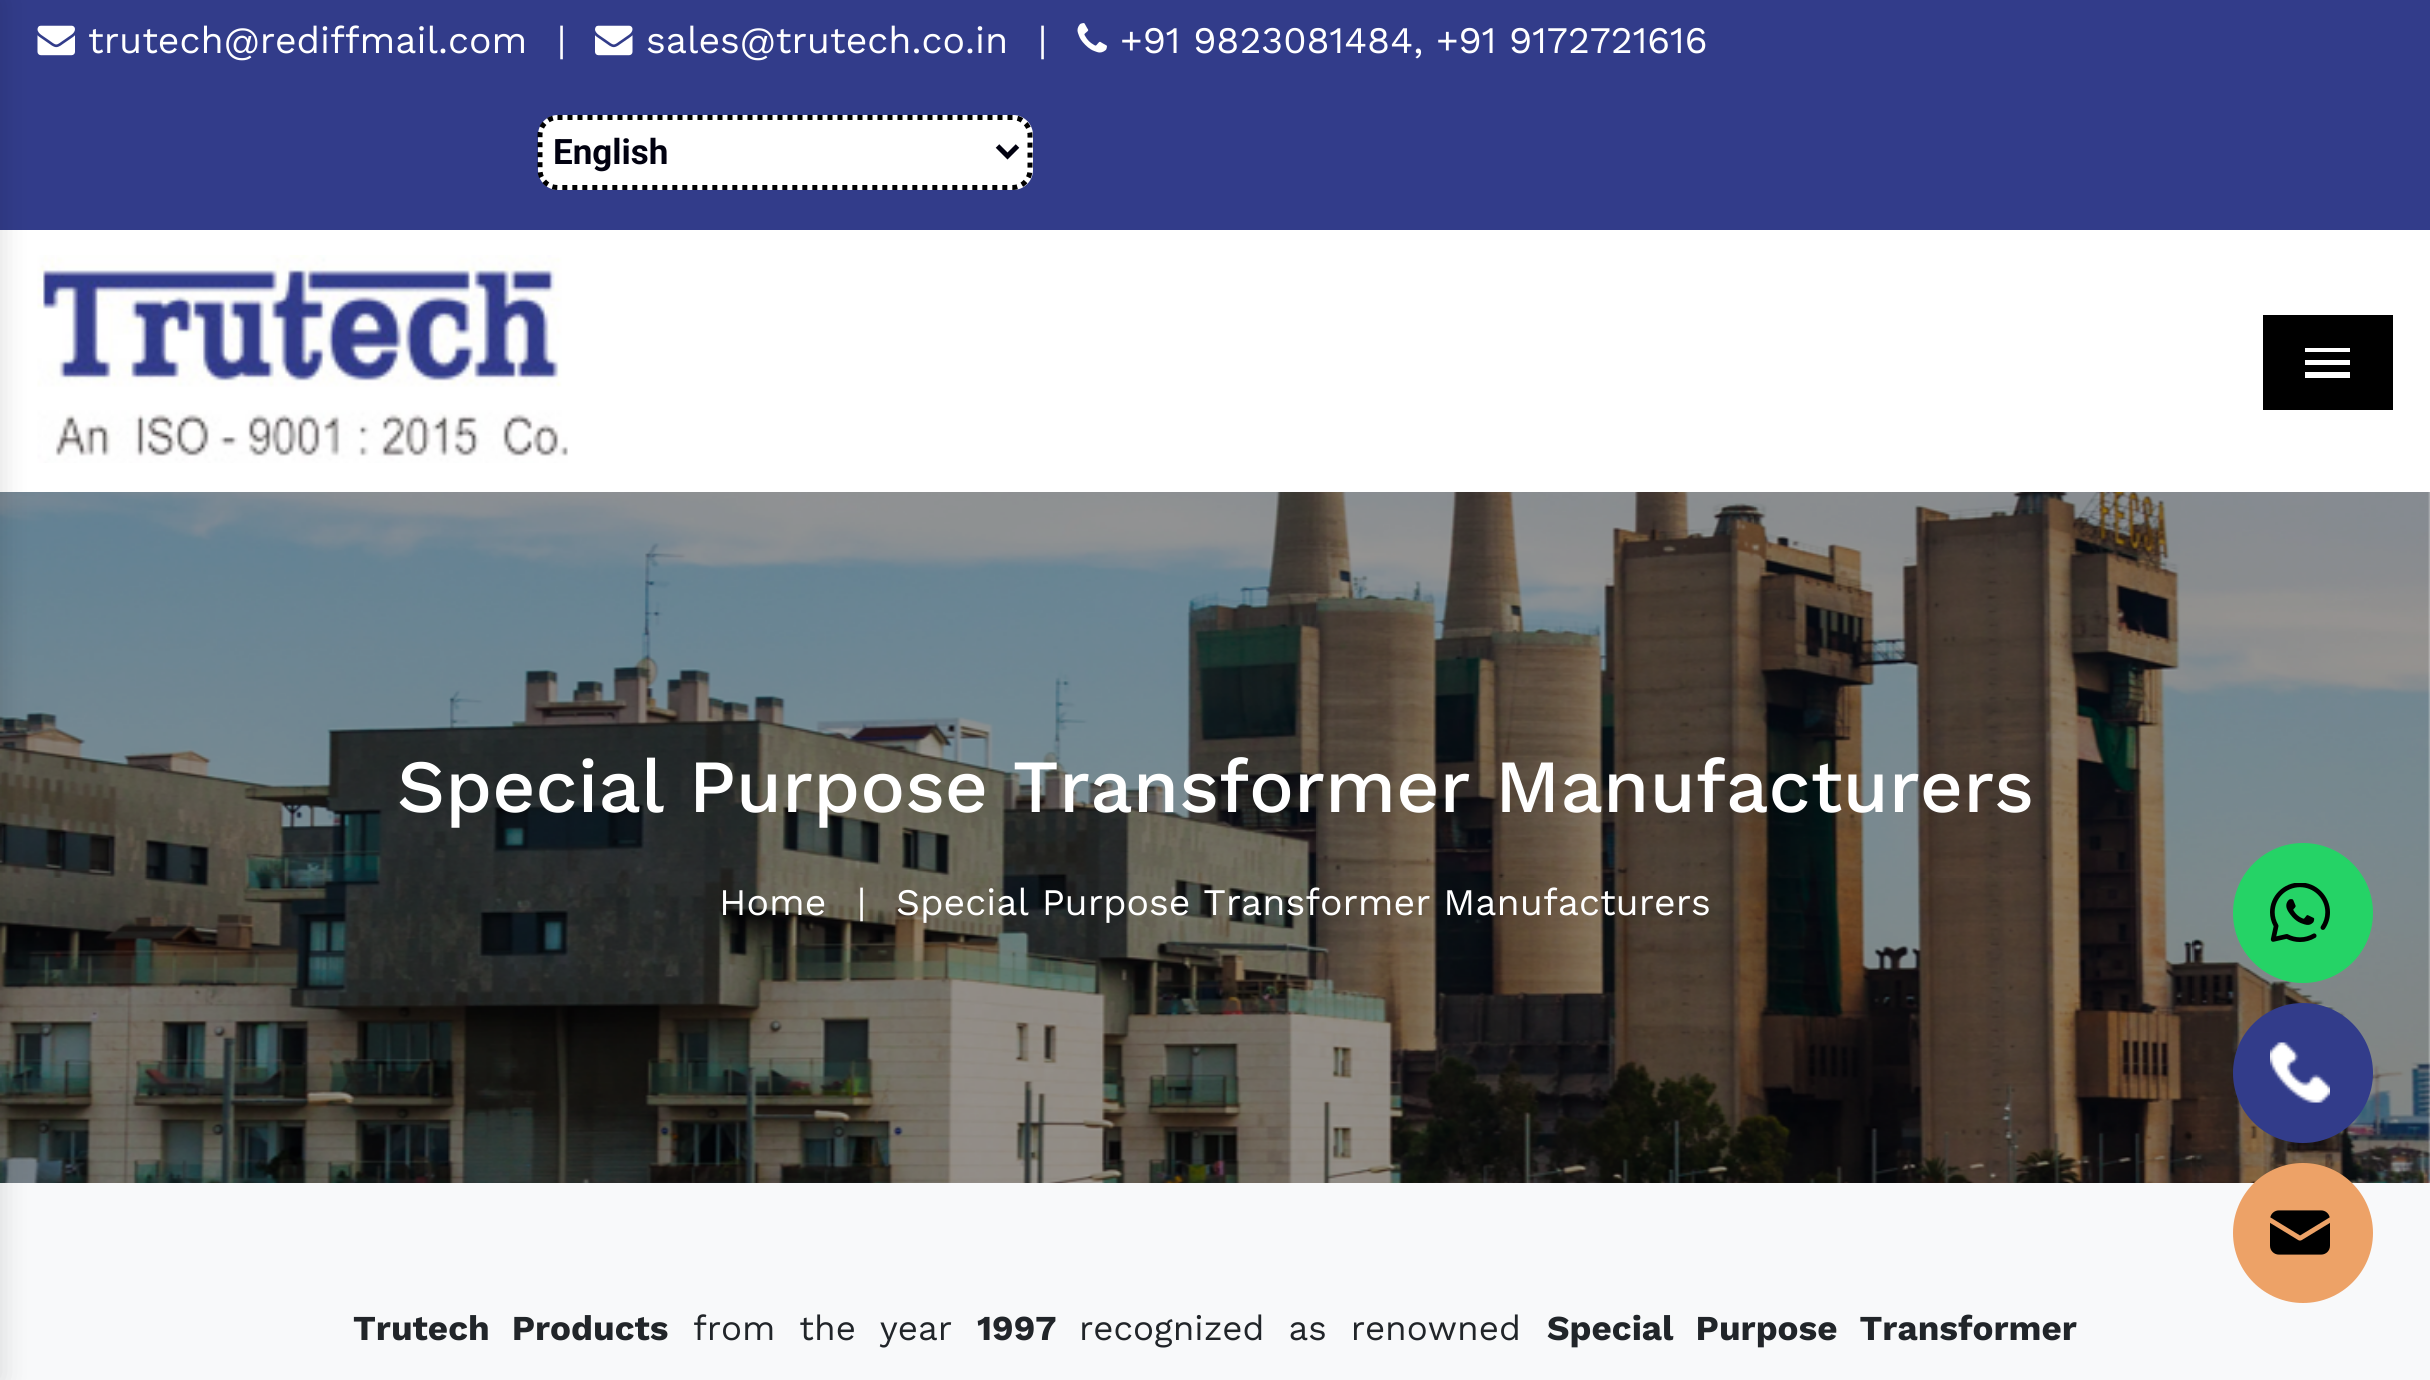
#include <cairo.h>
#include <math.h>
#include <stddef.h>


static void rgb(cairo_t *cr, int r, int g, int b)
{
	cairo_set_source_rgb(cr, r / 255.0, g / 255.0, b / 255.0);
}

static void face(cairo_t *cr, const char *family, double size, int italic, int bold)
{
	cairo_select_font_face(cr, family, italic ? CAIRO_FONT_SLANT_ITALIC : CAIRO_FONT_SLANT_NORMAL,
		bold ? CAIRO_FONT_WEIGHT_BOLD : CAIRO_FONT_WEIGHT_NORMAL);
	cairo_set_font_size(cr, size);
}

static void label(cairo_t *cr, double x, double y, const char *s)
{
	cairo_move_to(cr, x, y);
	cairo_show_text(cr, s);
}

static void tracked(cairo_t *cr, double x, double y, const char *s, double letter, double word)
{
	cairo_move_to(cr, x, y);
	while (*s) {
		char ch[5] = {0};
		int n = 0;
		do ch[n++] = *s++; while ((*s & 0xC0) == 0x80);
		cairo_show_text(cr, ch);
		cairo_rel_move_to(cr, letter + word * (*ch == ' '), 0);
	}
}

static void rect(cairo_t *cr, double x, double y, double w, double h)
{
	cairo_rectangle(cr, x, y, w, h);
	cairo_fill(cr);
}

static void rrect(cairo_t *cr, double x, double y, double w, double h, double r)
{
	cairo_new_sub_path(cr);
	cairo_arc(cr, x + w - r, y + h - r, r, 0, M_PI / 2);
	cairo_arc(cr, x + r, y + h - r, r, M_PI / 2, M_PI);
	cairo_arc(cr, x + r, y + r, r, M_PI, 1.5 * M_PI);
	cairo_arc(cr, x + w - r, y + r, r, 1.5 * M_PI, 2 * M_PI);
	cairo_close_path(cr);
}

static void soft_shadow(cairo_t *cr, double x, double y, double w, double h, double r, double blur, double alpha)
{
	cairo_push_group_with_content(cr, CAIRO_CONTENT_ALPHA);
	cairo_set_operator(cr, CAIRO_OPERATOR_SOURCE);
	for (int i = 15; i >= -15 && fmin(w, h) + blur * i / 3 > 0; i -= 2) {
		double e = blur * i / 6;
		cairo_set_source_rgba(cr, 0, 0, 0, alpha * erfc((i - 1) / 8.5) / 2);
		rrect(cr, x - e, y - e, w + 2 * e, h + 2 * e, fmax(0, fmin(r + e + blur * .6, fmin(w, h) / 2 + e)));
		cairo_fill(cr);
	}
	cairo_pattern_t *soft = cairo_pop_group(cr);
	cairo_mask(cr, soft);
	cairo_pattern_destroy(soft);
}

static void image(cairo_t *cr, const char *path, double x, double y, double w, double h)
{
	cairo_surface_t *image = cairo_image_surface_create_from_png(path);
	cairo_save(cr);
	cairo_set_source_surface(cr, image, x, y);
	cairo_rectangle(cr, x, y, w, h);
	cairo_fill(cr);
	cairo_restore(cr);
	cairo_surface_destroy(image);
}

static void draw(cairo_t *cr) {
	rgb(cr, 255, 255, 255);
	cairo_paint(cr);
	rgb(cr, 50, 60, 138);
	rect(cr, 0, 0, 2430, 230);
	image(cr, "image0.png", 37, 25, 38, 31);
	image(cr, "image3.png", 37, 255, 531, 208);
	image(cr, "image4.png", 0, 492, 2430, 691);
	rgb(cr, 248, 249, 250);
	rect(cr, 0, 1183, 2430, 197);
	rgb(cr, 0, 0, 0);
	soft_shadow(cr, -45, 0, 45, 1380, 0, 15, 0.14);
	face(cr, "Work Sans", 37.5, 0, 0);
	rgb(cr, 255, 255, 255);
	label(cr, 88, 53, "trutech@rediffmail.com");
	label(cr, 557, 53, "|");
	image(cr, "image1.png", 595, 25, 38, 31);
	label(cr, 646, 53, "sales@trutech.co.in");
	label(cr, 1038, 53, "|");
	image(cr, "image2.png", 1077, 23, 30, 30);
	label(cr, 1120, 53, "+91 9823081484, +91 9172721616");
	rrect(cr, 538, 115, 495, 75, 20);
	cairo_fill(cr);
	cairo_new_path(cr);
	cairo_move_to(cr, 557.5, 117.5);
	cairo_line_to(cr, 1012.5, 117.5);
	cairo_curve_to(cr, 1022, 117.5, 1030, 125.5, 1030, 135);
	cairo_line_to(cr, 1030, 170);
	cairo_curve_to(cr, 1030, 179.5, 1022, 187.5, 1012.5, 187.5);
	cairo_line_to(cr, 557.5, 187.5);
	cairo_curve_to(cr, 548, 187.5, 540, 179.5, 540, 170);
	cairo_line_to(cr, 540, 135);
	cairo_curve_to(cr, 540, 125.5, 548, 117.5, 557.5, 117.5);
	cairo_close_path(cr);
	rgb(cr, 0, 0, 0);
	cairo_set_line_width(cr, 5);
	cairo_set_dash(cr, (double[]){5, 5}, 2, 0);
	cairo_stroke(cr);
	cairo_new_path(cr);
	cairo_move_to(cr, 997.5, 146);
	cairo_line_to(cr, 1007.5, 156);
	cairo_line_to(cr, 1017.5, 146);
	rgb(cr, 1, 1, 16);
	cairo_set_dash(cr, NULL, 0, 0);
	cairo_stroke(cr);
	face(cr, "Roboto", 35, 0, 1);
	label(cr, 553, 164, "English");
	rgb(cr, 0, 0, 0);
	rect(cr, 2263, 315, 130, 95);
	rgb(cr, 255, 255, 255);
	cairo_new_path(cr);
	cairo_move_to(cr, 2305, 378);
	cairo_line_to(cr, 2350, 378);
	cairo_line_to(cr, 2350, 372);
	cairo_line_to(cr, 2305, 372);
	cairo_close_path(cr);
	cairo_move_to(cr, 2305, 365);
	cairo_line_to(cr, 2350, 365);
	cairo_line_to(cr, 2350, 360);
	cairo_line_to(cr, 2305, 360);
	cairo_close_path(cr);
	cairo_move_to(cr, 2305, 348);
	cairo_line_to(cr, 2305, 352);
	cairo_line_to(cr, 2350, 352);
	cairo_line_to(cr, 2350, 348);
	cairo_close_path(cr);
	cairo_fill(cr);
	face(cr, "Work Sans Medium", 75, 0, 0);
	label(cr, 397, 812, "Special Purpose Transformer Manufacturers");
	face(cr, "Work Sans", 37.5, 0, 0);
	label(cr, 719, 915, "Home");
	label(cr, 857, 915, "|");
	label(cr, 896, 915, "Special Purpose Transformer Manufacturers");
	face(cr, "Work Sans", 35, 0, 1);
	rgb(cr, 33, 37, 41);
	tracked(cr, 353, 1340, "Trutech Products", 0, 12);
	face(cr, "Work Sans", 35, 0, 0);
	tracked(cr, 693, 1340, "from the year", 0, 12);
	face(cr, "Work Sans", 35, 0, 1);
	label(cr, 977, 1340, "1997");
	face(cr, "Work Sans", 35, 0, 0);
	tracked(cr, 1079, 1340, "recognized as renowned", 0, 12);
	face(cr, "Work Sans", 35, 0, 1);
	tracked(cr, 1547, 1340, "Special Purpose Transformer", 0, 12);
	rgb(cr, 37, 211, 102);
	cairo_new_path(cr);
	cairo_arc(cr, 2303, 913, 70, 0, 2 * M_PI);
	cairo_fill(cr);
	image(cr, "image5.png", 2270, 883, 60, 59);
	rgb(cr, 50, 60, 138);
	cairo_arc(cr, 2303, 1073, 70, 0, 2 * M_PI);
	cairo_fill(cr);
	image(cr, "image6.png", 2270, 1042, 60, 61);
	rgb(cr, 237, 162, 103);
	cairo_arc(cr, 2303, 1233, 70, 0, 2 * M_PI);
	cairo_fill(cr);
	image(cr, "image7.png", 2270, 1210, 60, 45);
}

int main(void) {
	cairo_surface_t *surface = cairo_image_surface_create(CAIRO_FORMAT_RGB24, 2430, 1380);
	cairo_t *cr = cairo_create(surface);
	cairo_font_options_t *options = cairo_font_options_create();
	cairo_font_options_set_hint_metrics(options, CAIRO_HINT_METRICS_OFF);
	cairo_font_options_set_hint_style(options, CAIRO_HINT_STYLE_NONE);
	cairo_set_font_options(cr, options);
	cairo_set_miter_limit(cr, 4);
	draw(cr);
	cairo_surface_write_to_png(surface, "render.png");
	cairo_font_options_destroy(options);
	cairo_destroy(cr);
	cairo_surface_destroy(surface);
	return 0;
}
